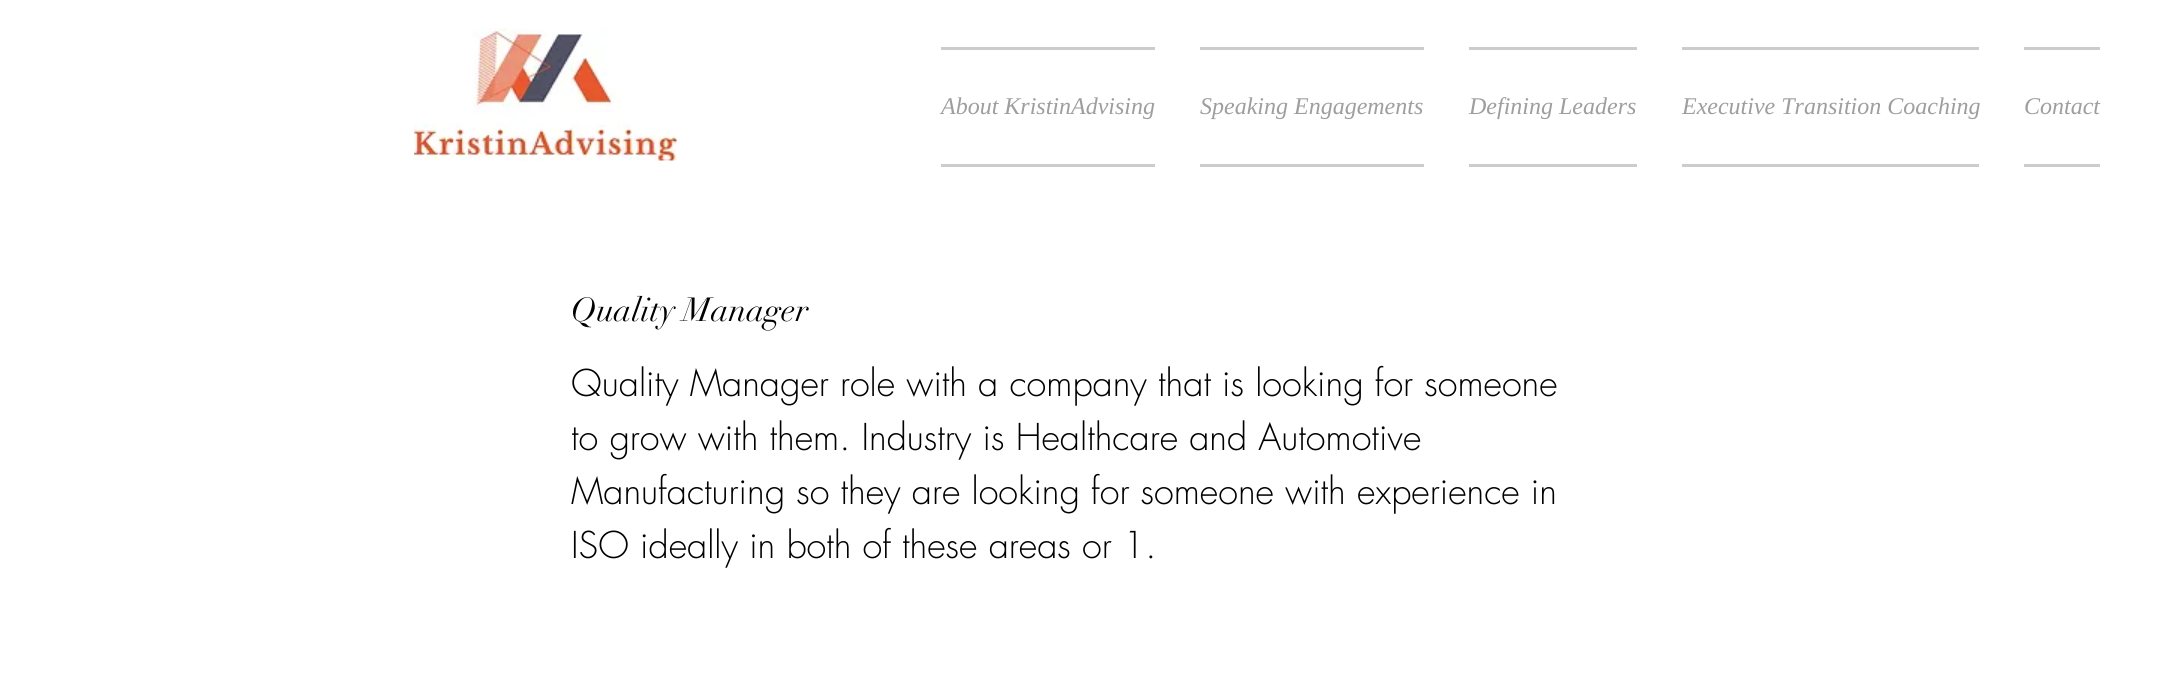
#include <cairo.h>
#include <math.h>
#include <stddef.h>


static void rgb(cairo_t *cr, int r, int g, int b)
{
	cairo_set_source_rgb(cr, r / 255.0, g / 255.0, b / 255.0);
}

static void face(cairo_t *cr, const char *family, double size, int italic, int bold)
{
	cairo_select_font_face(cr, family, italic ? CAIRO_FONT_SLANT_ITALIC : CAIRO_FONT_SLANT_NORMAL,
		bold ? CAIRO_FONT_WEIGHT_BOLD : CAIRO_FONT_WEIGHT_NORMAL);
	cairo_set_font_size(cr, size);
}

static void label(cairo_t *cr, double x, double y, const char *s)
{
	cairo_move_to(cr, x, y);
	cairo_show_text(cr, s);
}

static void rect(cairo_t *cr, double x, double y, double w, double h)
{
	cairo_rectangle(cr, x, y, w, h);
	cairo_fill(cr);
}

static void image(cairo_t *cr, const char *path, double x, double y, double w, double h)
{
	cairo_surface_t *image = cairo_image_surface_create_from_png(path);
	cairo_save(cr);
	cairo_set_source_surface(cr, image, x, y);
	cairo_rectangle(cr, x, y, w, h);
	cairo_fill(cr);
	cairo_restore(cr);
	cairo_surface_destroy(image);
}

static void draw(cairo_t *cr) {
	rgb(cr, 255, 255, 255);
	cairo_paint(cr);
	image(cr, "image0.png", 414, 28, 263, 133);
	rgb(cr, 204, 204, 204);
	rect(cr, 941, 47, 214, 3);
	rect(cr, 941, 164, 214, 3);
	face(cr, "Liberation Serif", 24, 1, 0);
	rgb(cr, 158, 158, 158);
	label(cr, 941, 114, "About KristinAdvising");
	rgb(cr, 204, 204, 204);
	rect(cr, 1200, 47, 224, 3);
	rect(cr, 1200, 164, 224, 3);
	rgb(cr, 158, 158, 158);
	label(cr, 1200, 114, "Speaking Engagements");
	rgb(cr, 204, 204, 204);
	rect(cr, 1469, 47, 168, 3);
	rect(cr, 1469, 164, 168, 3);
	rgb(cr, 158, 158, 158);
	label(cr, 1469, 114, "Defining Leaders");
	rgb(cr, 204, 204, 204);
	rect(cr, 1682, 47, 297, 3);
	rect(cr, 1682, 164, 297, 3);
	rgb(cr, 158, 158, 158);
	label(cr, 1682, 114, "Executive Transition Coaching");
	rgb(cr, 204, 204, 204);
	rect(cr, 2024, 47, 76, 3);
	rect(cr, 2024, 164, 76, 3);
	rgb(cr, 158, 158, 158);
	label(cr, 2024, 114, "Contact");
	face(cr, "didot", 33, 0, 0);
	rgb(cr, 0, 0, 0);
	label(cr, 571, 321, "Quality Manager");
	face(cr, "futura Light", 36, 0, 0);
	label(cr, 571, 396, "Quality Manager role with a company that is looking for someone");
	label(cr, 571, 450, "to grow with them. Industry is Healthcare and Automotive");
	label(cr, 571, 504, "Manufacturing so they are looking for someone with experience in");
	label(cr, 571, 558, "ISO ideally in both of these areas or 1.");
}

int main(void) {
	cairo_surface_t *surface = cairo_image_surface_create(CAIRO_FORMAT_RGB24, 2161, 682);
	cairo_t *cr = cairo_create(surface);
	cairo_font_options_t *options = cairo_font_options_create();
	cairo_font_options_set_hint_metrics(options, CAIRO_HINT_METRICS_OFF);
	cairo_font_options_set_hint_style(options, CAIRO_HINT_STYLE_NONE);
	cairo_set_font_options(cr, options);
	cairo_set_miter_limit(cr, 4);
	draw(cr);
	cairo_surface_write_to_png(surface, "render.png");
	cairo_font_options_destroy(options);
	cairo_destroy(cr);
	cairo_surface_destroy(surface);
	return 0;
}
